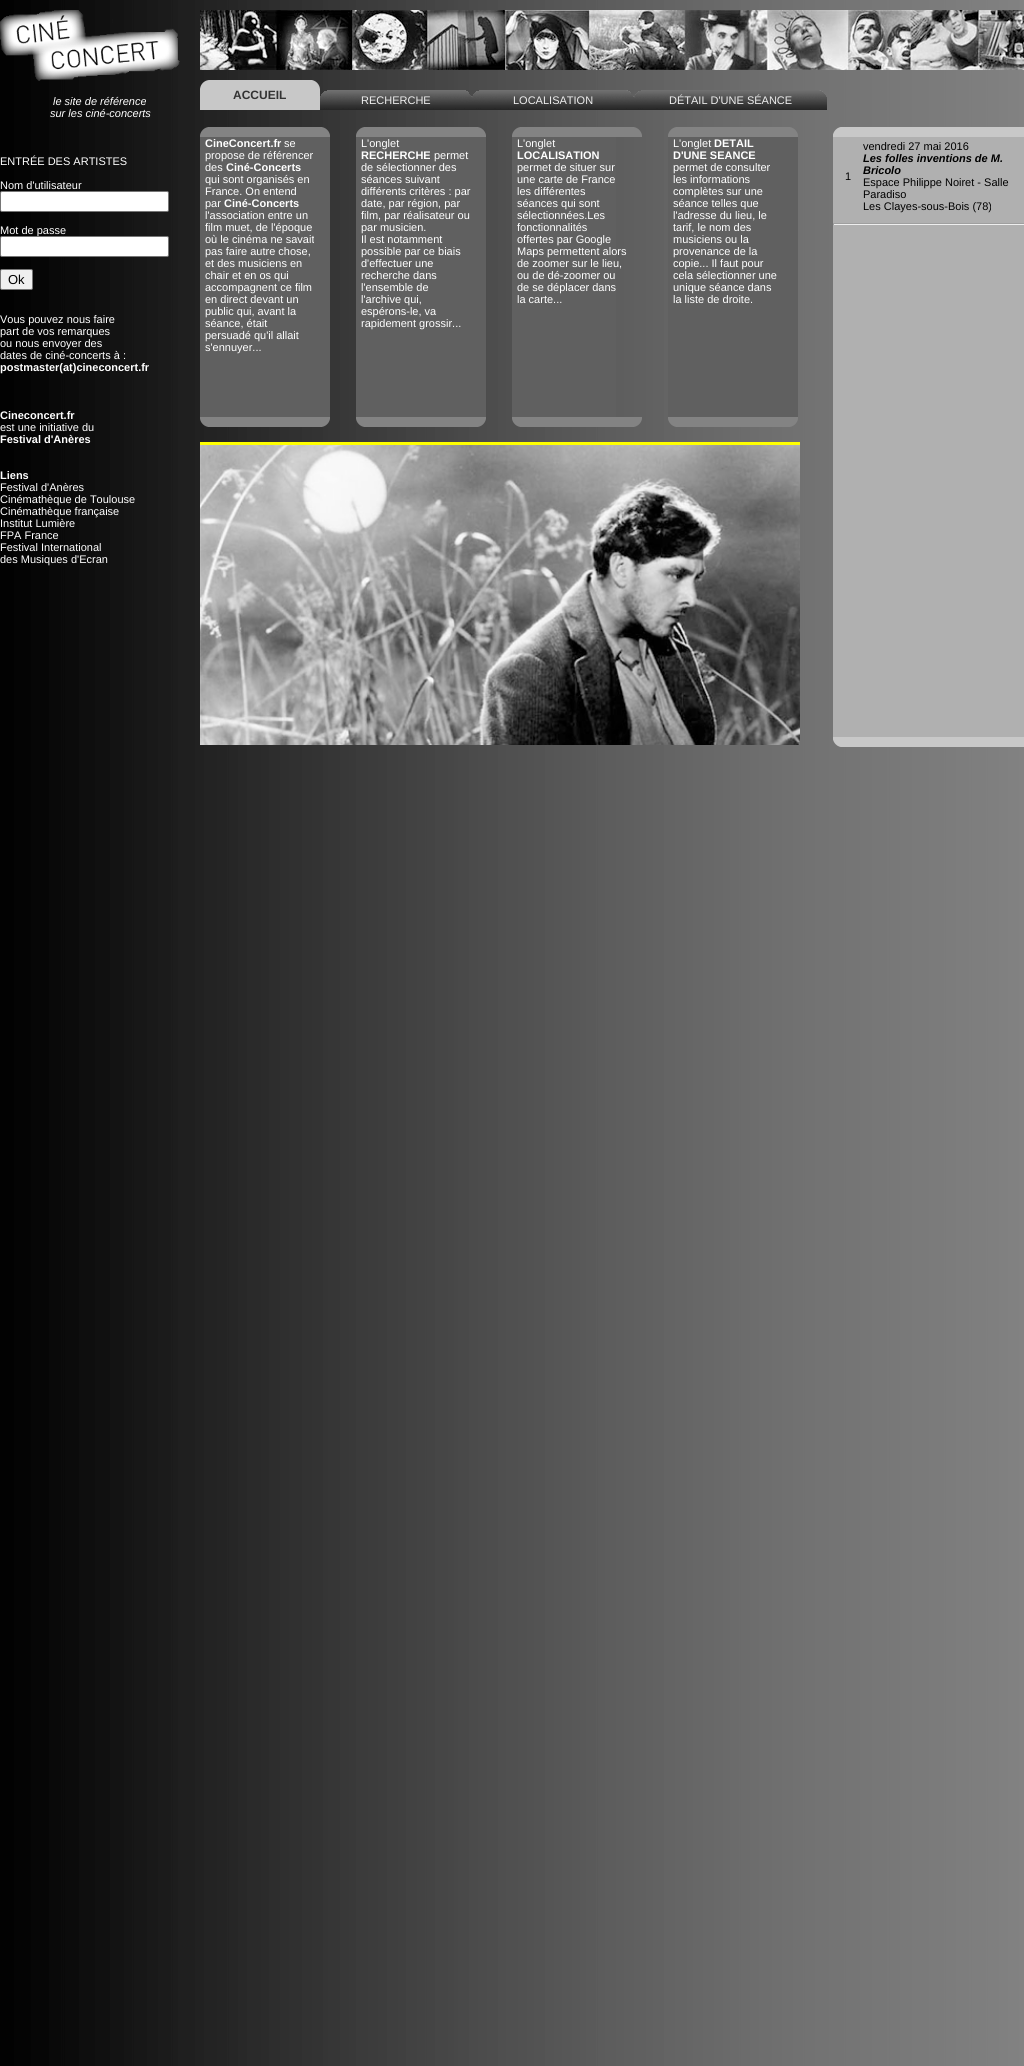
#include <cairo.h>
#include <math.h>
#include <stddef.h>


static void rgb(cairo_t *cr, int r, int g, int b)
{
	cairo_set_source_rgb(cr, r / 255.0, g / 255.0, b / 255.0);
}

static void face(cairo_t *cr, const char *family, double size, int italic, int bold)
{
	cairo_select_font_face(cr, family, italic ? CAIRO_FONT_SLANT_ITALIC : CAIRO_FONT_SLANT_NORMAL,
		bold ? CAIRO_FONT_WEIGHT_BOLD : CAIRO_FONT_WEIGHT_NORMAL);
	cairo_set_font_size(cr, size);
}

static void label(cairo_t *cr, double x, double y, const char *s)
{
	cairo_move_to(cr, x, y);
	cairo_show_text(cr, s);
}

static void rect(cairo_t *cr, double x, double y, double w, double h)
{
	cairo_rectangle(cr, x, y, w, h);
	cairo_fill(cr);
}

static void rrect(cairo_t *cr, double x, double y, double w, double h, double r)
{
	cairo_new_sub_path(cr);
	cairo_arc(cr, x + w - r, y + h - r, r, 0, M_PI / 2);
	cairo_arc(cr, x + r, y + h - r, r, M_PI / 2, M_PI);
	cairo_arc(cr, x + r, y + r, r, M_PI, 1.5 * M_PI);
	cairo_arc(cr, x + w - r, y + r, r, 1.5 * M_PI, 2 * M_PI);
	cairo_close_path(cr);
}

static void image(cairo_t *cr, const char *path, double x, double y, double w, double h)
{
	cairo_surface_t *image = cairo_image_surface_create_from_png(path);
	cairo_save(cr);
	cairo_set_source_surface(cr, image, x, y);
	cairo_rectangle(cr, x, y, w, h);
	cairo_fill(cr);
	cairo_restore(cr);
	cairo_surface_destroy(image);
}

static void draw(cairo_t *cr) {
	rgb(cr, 255, 255, 255);
	cairo_paint(cr);
	image(cr, "image0.png", 0, 0, 1024, 2066);
	image(cr, "image1.png", 200, 10, 824, 60);
	image(cr, "image2.png", 0, 10, 180, 71);
	face(cr, "Liberation Sans", 11, 1, 0);
	rgb(cr, 255, 255, 255);
	label(cr, 53, 105, "le site de référence");
	label(cr, 50, 117, "sur les ciné-concerts");
	face(cr, "Liberation Sans", 11, 0, 0);
	label(cr, 0, 165, "ENTRÉE DES ARTISTES");
	label(cr, 0, 189, "Nom d'utilisateur");
	rrect(cr, 0.5, 191.5, 168, 20, 1.5);
	cairo_fill_preserve(cr);
	rgb(cr, 118, 118, 118);
	cairo_set_line_width(cr, 1);
	cairo_stroke(cr);
	rgb(cr, 255, 255, 255);
	label(cr, 0, 234, "Mot de passe");
	rrect(cr, 0.5, 236.5, 168, 20, 1.5);
	cairo_fill_preserve(cr);
	rgb(cr, 118, 118, 118);
	cairo_stroke(cr);
	rgb(cr, 239, 239, 239);
	rrect(cr, 0.5, 269.5, 32, 20, 1.5);
	cairo_fill_preserve(cr);
	rgb(cr, 118, 118, 118);
	cairo_stroke(cr);
	face(cr, "Liberation Sans", 13, 0, 0);
	rgb(cr, 0, 0, 0);
	label(cr, 8, 284, "Ok");
	face(cr, "Liberation Sans", 11, 0, 0);
	rgb(cr, 255, 255, 255);
	label(cr, 0, 323, "Vous pouvez nous faire");
	label(cr, 0, 335, "part de vos remarques");
	label(cr, 0, 347, "ou nous envoyer des");
	label(cr, 0, 359, "dates de ciné-concerts à :");
	face(cr, "Liberation Sans", 11, 0, 1);
	label(cr, 0, 371, "postmaster(at)cineconcert.fr");
	label(cr, 0, 419, "Cineconcert.fr");
	face(cr, "Liberation Sans", 11, 0, 0);
	label(cr, 0, 431, "est une initiative du");
	face(cr, "Liberation Sans", 11, 0, 1);
	label(cr, 0, 443, "Festival d'Anères");
	label(cr, 0, 479, "Liens");
	face(cr, "Liberation Sans", 11, 0, 0);
	label(cr, 0, 491, "Festival d'Anères");
	label(cr, 0, 503, "Cinémathèque de Toulouse");
	label(cr, 0, 515, "Cinémathèque française");
	label(cr, 0, 527, "Institut Lumière");
	label(cr, 0, 539, "FPA France");
	label(cr, 0, 551, "Festival International");
	label(cr, 0, 563, "des Musiques d'Ecran");
	image(cr, "image3.png", 200, 80, 100, 30);
	image(cr, "image4.png", 300, 80, 20, 30);
	face(cr, "Liberation Sans", 12, 0, 1);
	rgb(cr, 51, 51, 51);
	label(cr, 233, 99, "ACCUEIL");
	image(cr, "image5.png", 320, 90, 100, 20);
	image(cr, "image6.png", 420, 90, 52, 20);
	face(cr, "Liberation Sans", 11, 0, 0);
	rgb(cr, 238, 238, 238);
	label(cr, 361, 104, "RECHERCHE");
	image(cr, "image7.png", 472, 90, 100, 20);
	image(cr, "image8.png", 572, 90, 62, 20);
	label(cr, 513, 104, "LOCALISATION");
	image(cr, "image9.png", 634, 90, 100, 20);
	image(cr, "image10.png", 734, 90, 93, 20);
	label(cr, 669, 104, "DÉTAIL D'UNE SÉANCE");
	image(cr, "image11.png", 833, 127, 191, 10);
	image(cr, "image12.png", 200, 127, 130, 10);
	rgb(cr, 96, 96, 96);
	rect(cr, 200, 137, 130, 280);
	face(cr, "Liberation Sans", 11, 0, 1);
	rgb(cr, 255, 255, 255);
	label(cr, 205, 147, "CineConcert.fr");
	face(cr, "Liberation Sans", 11, 0, 0);
	label(cr, 284, 147, "se");
	label(cr, 205, 159, "propose de référencer");
	label(cr, 205, 171, "des");
	face(cr, "Liberation Sans", 11, 0, 1);
	label(cr, 226, 171, "Ciné-Concerts");
	face(cr, "Liberation Sans", 11, 0, 0);
	label(cr, 205, 183, "qui sont organisés en");
	label(cr, 205, 195, "France. On entend");
	label(cr, 205, 207, "par");
	face(cr, "Liberation Sans", 11, 0, 1);
	label(cr, 224, 207, "Ciné-Concerts");
	face(cr, "Liberation Sans", 11, 0, 0);
	label(cr, 205, 219, "l'association entre un");
	label(cr, 205, 231, "film muet, de l'époque");
	label(cr, 205, 243, "où le cinéma ne savait");
	label(cr, 205, 255, "pas faire autre chose,");
	label(cr, 205, 267, "et des musiciens en");
	label(cr, 205, 279, "chair et en os qui");
	label(cr, 205, 291, "accompagnent ce film");
	label(cr, 205, 303, "en direct devant un");
	label(cr, 205, 315, "public qui, avant la");
	label(cr, 205, 327, "séance, était");
	label(cr, 205, 339, "persuadé qu'il allait");
	label(cr, 205, 351, "s'ennuyer...");
	image(cr, "image13.png", 200, 417, 130, 10);
	image(cr, "image14.png", 356, 127, 130, 10);
	rgb(cr, 96, 96, 96);
	rect(cr, 356, 137, 130, 280);
	rgb(cr, 255, 255, 255);
	label(cr, 361, 147, "L'onglet");
	face(cr, "Liberation Sans", 11, 0, 1);
	label(cr, 361, 159, "RECHERCHE");
	face(cr, "Liberation Sans", 11, 0, 0);
	label(cr, 434, 159, "permet");
	label(cr, 361, 171, "de sélectionner des");
	label(cr, 361, 183, "séances suivant");
	label(cr, 361, 195, "différents critères : par");
	label(cr, 361, 207, "date, par région, par");
	label(cr, 361, 219, "film, par réalisateur ou");
	label(cr, 361, 231, "par musicien.");
	label(cr, 361, 243, "Il est notamment");
	label(cr, 361, 255, "possible par ce biais");
	label(cr, 361, 267, "d'effectuer une");
	label(cr, 361, 279, "recherche dans");
	label(cr, 361, 291, "l'ensemble de");
	label(cr, 361, 303, "l'archive qui,");
	label(cr, 361, 315, "espérons-le, va");
	label(cr, 361, 327, "rapidement grossir...");
	image(cr, "image15.png", 356, 417, 130, 10);
	image(cr, "image16.png", 512, 127, 130, 10);
	rgb(cr, 96, 96, 96);
	rect(cr, 512, 137, 104, 280);
	rgb(cr, 255, 255, 255);
	label(cr, 517, 147, "L'onglet");
	face(cr, "Liberation Sans", 11, 0, 1);
	label(cr, 517, 159, "LOCALISATION");
	face(cr, "Liberation Sans", 11, 0, 0);
	label(cr, 517, 171, "permet de situer sur");
	label(cr, 517, 183, "une carte de France");
	label(cr, 517, 195, "les différentes");
	label(cr, 517, 207, "séances qui sont");
	label(cr, 517, 219, "sélectionnées.Les");
	label(cr, 517, 231, "fonctionnalités");
	label(cr, 517, 243, "offertes par Google");
	label(cr, 517, 255, "Maps permettent alors");
	label(cr, 517, 267, "de zoomer sur le lieu,");
	label(cr, 517, 279, "ou de dé-zoomer ou");
	label(cr, 517, 291, "de se déplacer dans");
	label(cr, 517, 303, "la carte...");
	image(cr, "image17.png", 512, 417, 130, 10);
	image(cr, "image18.png", 668, 127, 130, 10);
	rgb(cr, 96, 96, 96);
	rect(cr, 668, 137, 130, 280);
	rgb(cr, 255, 255, 255);
	label(cr, 673, 147, "L'onglet");
	face(cr, "Liberation Sans", 11, 0, 1);
	label(cr, 714, 147, "DETAIL");
	label(cr, 673, 159, "D'UNE SEANCE");
	face(cr, "Liberation Sans", 11, 0, 0);
	label(cr, 673, 171, "permet de consulter");
	label(cr, 673, 183, "les informations");
	label(cr, 673, 195, "complètes sur une");
	label(cr, 673, 207, "séance telles que");
	label(cr, 673, 219, "l'adresse du lieu, le");
	label(cr, 673, 231, "tarif, le nom des");
	label(cr, 673, 243, "musiciens ou la");
	label(cr, 673, 255, "provenance de la");
	label(cr, 673, 267, "copie... Il faut pour");
	label(cr, 673, 279, "cela sélectionner une");
	label(cr, 673, 291, "unique séance dans");
	label(cr, 673, 303, "la liste de droite.");
	image(cr, "image19.png", 668, 417, 130, 10);
	rgb(cr, 255, 255, 0);
	rect(cr, 200, 442, 600, 3);
	image(cr, "image20.png", 200, 445, 600, 300);
	rgb(cr, 176, 176, 176);
	rect(cr, 833, 137, 191, 600);
	rgb(cr, 0, 0, 0);
	label(cr, 845, 180, "1");
	label(cr, 863, 150, "vendredi 27 mai 2016");
	face(cr, "Liberation Sans", 11, 1, 1);
	label(cr, 863, 162, "Les folles inventions de M.");
	label(cr, 863, 174, "Bricolo");
	face(cr, "Liberation Sans", 11, 0, 0);
	label(cr, 863, 186, "Espace Philippe Noiret - Salle");
	label(cr, 863, 198, "Paradiso");
	label(cr, 863, 210, "Les Clayes-sous-Bois (78)");
	rgb(cr, 159, 159, 159);
	rect(cr, 833, 223, 191, 1);
	rgb(cr, 238, 238, 238);
	rect(cr, 833, 224, 191, 1);
	rgb(cr, 159, 159, 159);
	rect(cr, 833, 223, 1, 2);
	image(cr, "image21.png", 833, 737, 191, 10);
}

int main(void) {
	cairo_surface_t *surface = cairo_image_surface_create(CAIRO_FORMAT_RGB24, 1024, 2066);
	cairo_t *cr = cairo_create(surface);
	cairo_font_options_t *options = cairo_font_options_create();
	cairo_font_options_set_hint_metrics(options, CAIRO_HINT_METRICS_OFF);
	cairo_font_options_set_hint_style(options, CAIRO_HINT_STYLE_NONE);
	cairo_set_font_options(cr, options);
	cairo_set_miter_limit(cr, 4);
	draw(cr);
	cairo_surface_write_to_png(surface, "render.png");
	cairo_font_options_destroy(options);
	cairo_destroy(cr);
	cairo_surface_destroy(surface);
	return 0;
}
